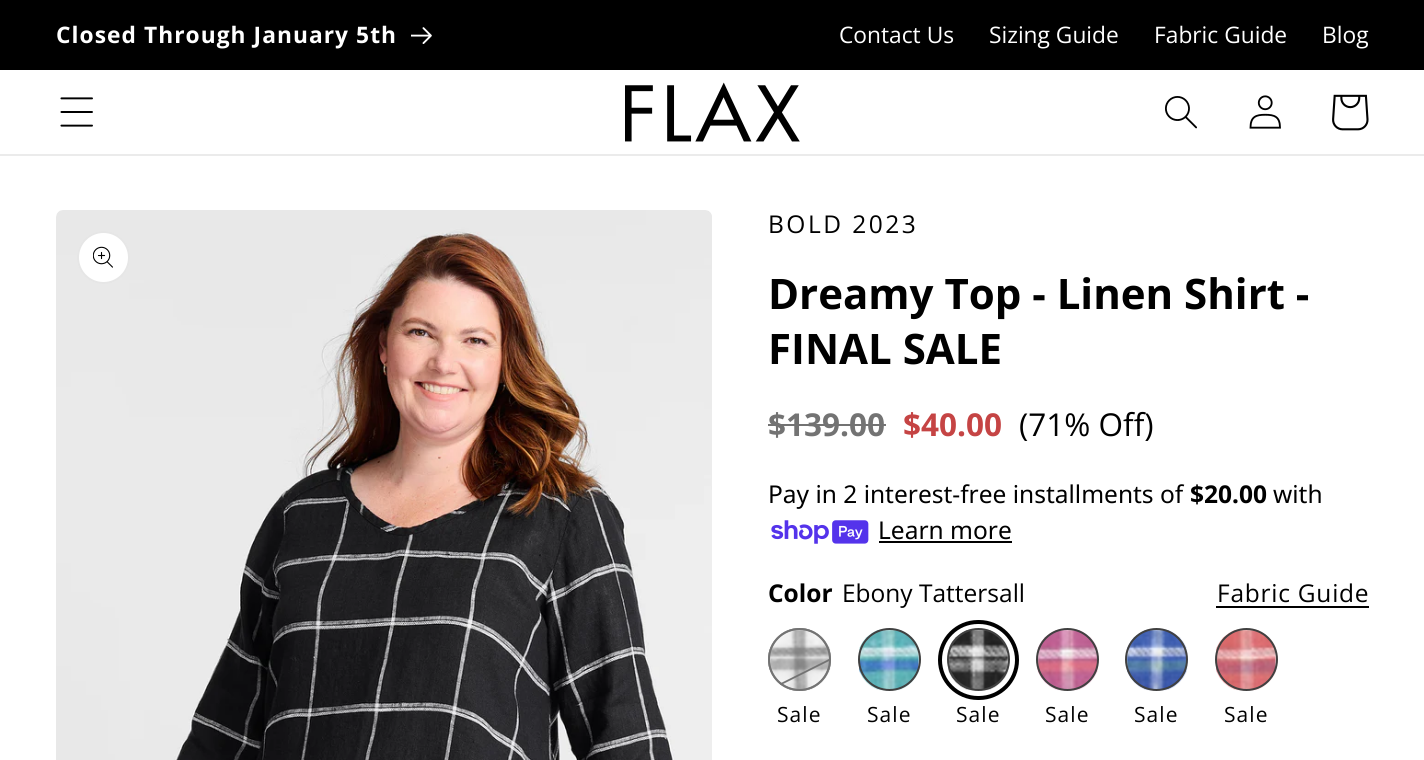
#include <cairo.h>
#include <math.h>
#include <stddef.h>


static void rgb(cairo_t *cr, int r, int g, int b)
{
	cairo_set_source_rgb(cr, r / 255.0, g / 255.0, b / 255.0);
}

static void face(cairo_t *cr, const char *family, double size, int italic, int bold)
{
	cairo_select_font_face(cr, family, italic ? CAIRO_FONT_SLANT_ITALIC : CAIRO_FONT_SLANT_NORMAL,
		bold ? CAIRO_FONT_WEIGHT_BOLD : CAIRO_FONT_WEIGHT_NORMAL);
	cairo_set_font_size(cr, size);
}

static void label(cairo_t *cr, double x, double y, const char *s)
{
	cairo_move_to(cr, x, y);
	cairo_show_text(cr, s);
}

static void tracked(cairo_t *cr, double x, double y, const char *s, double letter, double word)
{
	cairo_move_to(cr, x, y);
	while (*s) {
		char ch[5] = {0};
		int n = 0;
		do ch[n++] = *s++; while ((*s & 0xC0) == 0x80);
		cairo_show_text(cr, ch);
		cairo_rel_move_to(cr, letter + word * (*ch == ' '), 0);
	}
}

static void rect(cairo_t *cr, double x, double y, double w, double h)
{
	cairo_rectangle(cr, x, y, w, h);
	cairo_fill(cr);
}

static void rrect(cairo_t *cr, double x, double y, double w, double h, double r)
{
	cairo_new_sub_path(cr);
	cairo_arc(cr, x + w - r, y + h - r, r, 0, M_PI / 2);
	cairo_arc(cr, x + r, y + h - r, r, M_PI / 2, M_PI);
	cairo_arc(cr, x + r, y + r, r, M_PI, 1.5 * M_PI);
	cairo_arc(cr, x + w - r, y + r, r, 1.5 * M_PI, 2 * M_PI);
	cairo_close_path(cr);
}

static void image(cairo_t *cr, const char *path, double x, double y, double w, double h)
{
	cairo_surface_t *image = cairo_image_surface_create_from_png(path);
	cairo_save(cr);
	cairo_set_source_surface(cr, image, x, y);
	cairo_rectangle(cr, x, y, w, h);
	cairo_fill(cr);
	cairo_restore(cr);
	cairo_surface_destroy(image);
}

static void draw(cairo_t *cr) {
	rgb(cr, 255, 255, 255);
	cairo_paint(cr);
	rgb(cr, 0, 0, 0);
	rect(cr, 0, 0, 1424, 70);
	face(cr, "Open Sans", 22.75, 0, 1);
	rgb(cr, 255, 255, 255);
	tracked(cr, 56, 43, "Closed Through January 5th", 1.05, 0);
	image(cr, "image0.png", 411, 27, 21, 17);
	face(cr, "Open Sans", 22.75, 0, 0);
	label(cr, 839, 43, "Contact Us");
	label(cr, 989, 43, "Sizing Guide");
	label(cr, 1154, 43, "Fabric Guide");
	label(cr, 1322, 43, "Blog");
	rgb(cr, 235, 235, 235);
	rect(cr, 0, 154, 1424, 2);
	image(cr, "image1.png", 60, 97, 33, 30);
	image(cr, "image2.png", 625, 82, 175, 60);
	image(cr, "image3.png", 1165, 96, 32, 33);
	image(cr, "image4.png", 1249, 95, 32, 34);
	image(cr, "image5.png", 1332, 94, 37, 37);
	rgb(cr, 245, 245, 245);
	rrect(cr, 56, 210, 656, 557, 7);
	cairo_fill(cr);
	image(cr, "image6.png", 56, 210, 656, 550);
	rgb(cr, 255, 255, 255);
	cairo_arc(cr, 103.5, 257.5, 26.5, 0, 2 * M_PI);
	cairo_fill(cr);
	cairo_arc(cr, 103.5, 257.5, 25.5, 0, 2 * M_PI);
	cairo_set_source_rgba(cr, 0, 0, 0, 0.1);
	cairo_stroke(cr);
	image(cr, "image7.png", 93, 246, 20, 22);
	face(cr, "Open Sans", 24.5, 0, 0);
	rgb(cr, 0, 0, 0);
	tracked(cr, 768, 233, "BOLD 2023", 2.5, 0);
	face(cr, "Open Sans", 42, 0, 1);
	label(cr, 768, 309, "Dreamy Top - Linen Shirt -");
	label(cr, 768, 364, "FINAL SALE");
	face(cr, "Open Sans", 31.5, 0, 1);
	rgb(cr, 115, 115, 115);
	label(cr, 768, 436, "$139.00");
	rect(cr, 768, 424, 118, 2);
	rgb(cr, 197, 68, 68);
	label(cr, 903, 436, "$40.00");
	face(cr, "Open Sans", 31.5, 0, 0);
	rgb(cr, 0, 0, 0);
	label(cr, 1019, 436, "(71% Off)");
	face(cr, "Noto Sans", 24.5, 0, 0);
	label(cr, 768, 503, "Pay in 2 interest-free installments of");
	face(cr, "Noto Sans", 24.5, 0, 1);
	label(cr, 1190, 503, "$20.00");
	face(cr, "Noto Sans", 24.5, 0, 0);
	label(cr, 1273, 503, "with");
	image(cr, "image8.png", 771, 520, 98, 24);
	label(cr, 878, 539, "Learn more");
	rect(cr, 879, 541, 133, 2);
	face(cr, "Open Sans", 24.5, 0, 1);
	label(cr, 768, 602, "Color");
	face(cr, "Open Sans", 24.5, 0, 0);
	label(cr, 842, 602, "Ebony Tattersall");
	tracked(cr, 1217, 602, "Fabric Guide", 0.75, 0);
	rect(cr, 1216, 606, 153, 2);
	image(cr, "image9.png", 769, 629, 62, 62);
	cairo_arc(cr, 799.5, 659.5, 30.5, 0, 2 * M_PI);
	rgb(cr, 64, 64, 64);
	cairo_stroke(cr);
	cairo_set_source_rgba(cr, 1, 1, 1, 0.5);
	cairo_arc(cr, 799.5, 659.5, 31.5, 0, 2 * M_PI);
	cairo_fill(cr);
	cairo_save(cr);
	rrect(cr, 768, 628, 63, 63, 31.5);
	cairo_clip(cr);
	cairo_new_path(cr);
	cairo_move_to(cr, 770, 689.5);
	cairo_line_to(cr, 889, 630);
	rgb(cr, 115, 115, 115);
	cairo_set_line_width(cr, 1.8);
	cairo_stroke(cr);
	cairo_restore(cr);
	cairo_arc(cr, 799.5, 659.5, 30.5, 0, 2 * M_PI);
	rgb(cr, 115, 115, 115);
	cairo_stroke(cr);
	face(cr, "Open Sans", 21, 0, 0);
	rgb(cr, 0, 0, 0);
	tracked(cr, 777, 722, "Sale", 1.05, 0);
	image(cr, "image10.png", 859, 629, 61, 62);
	cairo_arc(cr, 889.5, 659.5, 30.5, 0, 2 * M_PI);
	rgb(cr, 64, 64, 64);
	cairo_stroke(cr);
	rgb(cr, 0, 0, 0);
	tracked(cr, 867, 722, "Sale", 1.05, 0);
	image(cr, "image11.png", 948, 629, 61, 62);
	cairo_arc(cr, 978.5, 659.5, 30.5, 0, 2 * M_PI);
	rgb(cr, 64, 64, 64);
	cairo_stroke(cr);
	rrect(cr, 940, 622, 77, 76, 38);
	rgb(cr, 0, 0, 0);
	cairo_set_line_width(cr, 4);
	cairo_stroke(cr);
	tracked(cr, 956, 722, "Sale", 1.05, 0);
	image(cr, "image12.png", 1037, 629, 61, 62);
	cairo_arc(cr, 1067.5, 659.5, 30.5, 0, 2 * M_PI);
	rgb(cr, 64, 64, 64);
	cairo_set_line_width(cr, 2);
	cairo_stroke(cr);
	rgb(cr, 0, 0, 0);
	tracked(cr, 1045, 722, "Sale", 1.05, 0);
	image(cr, "image13.png", 1126, 629, 62, 62);
	cairo_arc(cr, 1156.5, 659.5, 30.5, 0, 2 * M_PI);
	rgb(cr, 64, 64, 64);
	cairo_stroke(cr);
	rgb(cr, 0, 0, 0);
	tracked(cr, 1134, 722, "Sale", 1.05, 0);
	image(cr, "image14.png", 1216, 629, 61, 62);
	cairo_arc(cr, 1246.5, 659.5, 30.5, 0, 2 * M_PI);
	rgb(cr, 64, 64, 64);
	cairo_stroke(cr);
	rgb(cr, 0, 0, 0);
	tracked(cr, 1224, 722, "Sale", 1.05, 0);
}

int main(void) {
	cairo_surface_t *surface = cairo_image_surface_create(CAIRO_FORMAT_RGB24, 1424, 760);
	cairo_t *cr = cairo_create(surface);
	cairo_font_options_t *options = cairo_font_options_create();
	cairo_font_options_set_hint_metrics(options, CAIRO_HINT_METRICS_OFF);
	cairo_font_options_set_hint_style(options, CAIRO_HINT_STYLE_NONE);
	cairo_set_font_options(cr, options);
	cairo_set_miter_limit(cr, 4);
	draw(cr);
	cairo_surface_write_to_png(surface, "render.png");
	cairo_font_options_destroy(options);
	cairo_destroy(cr);
	cairo_surface_destroy(surface);
	return 0;
}
